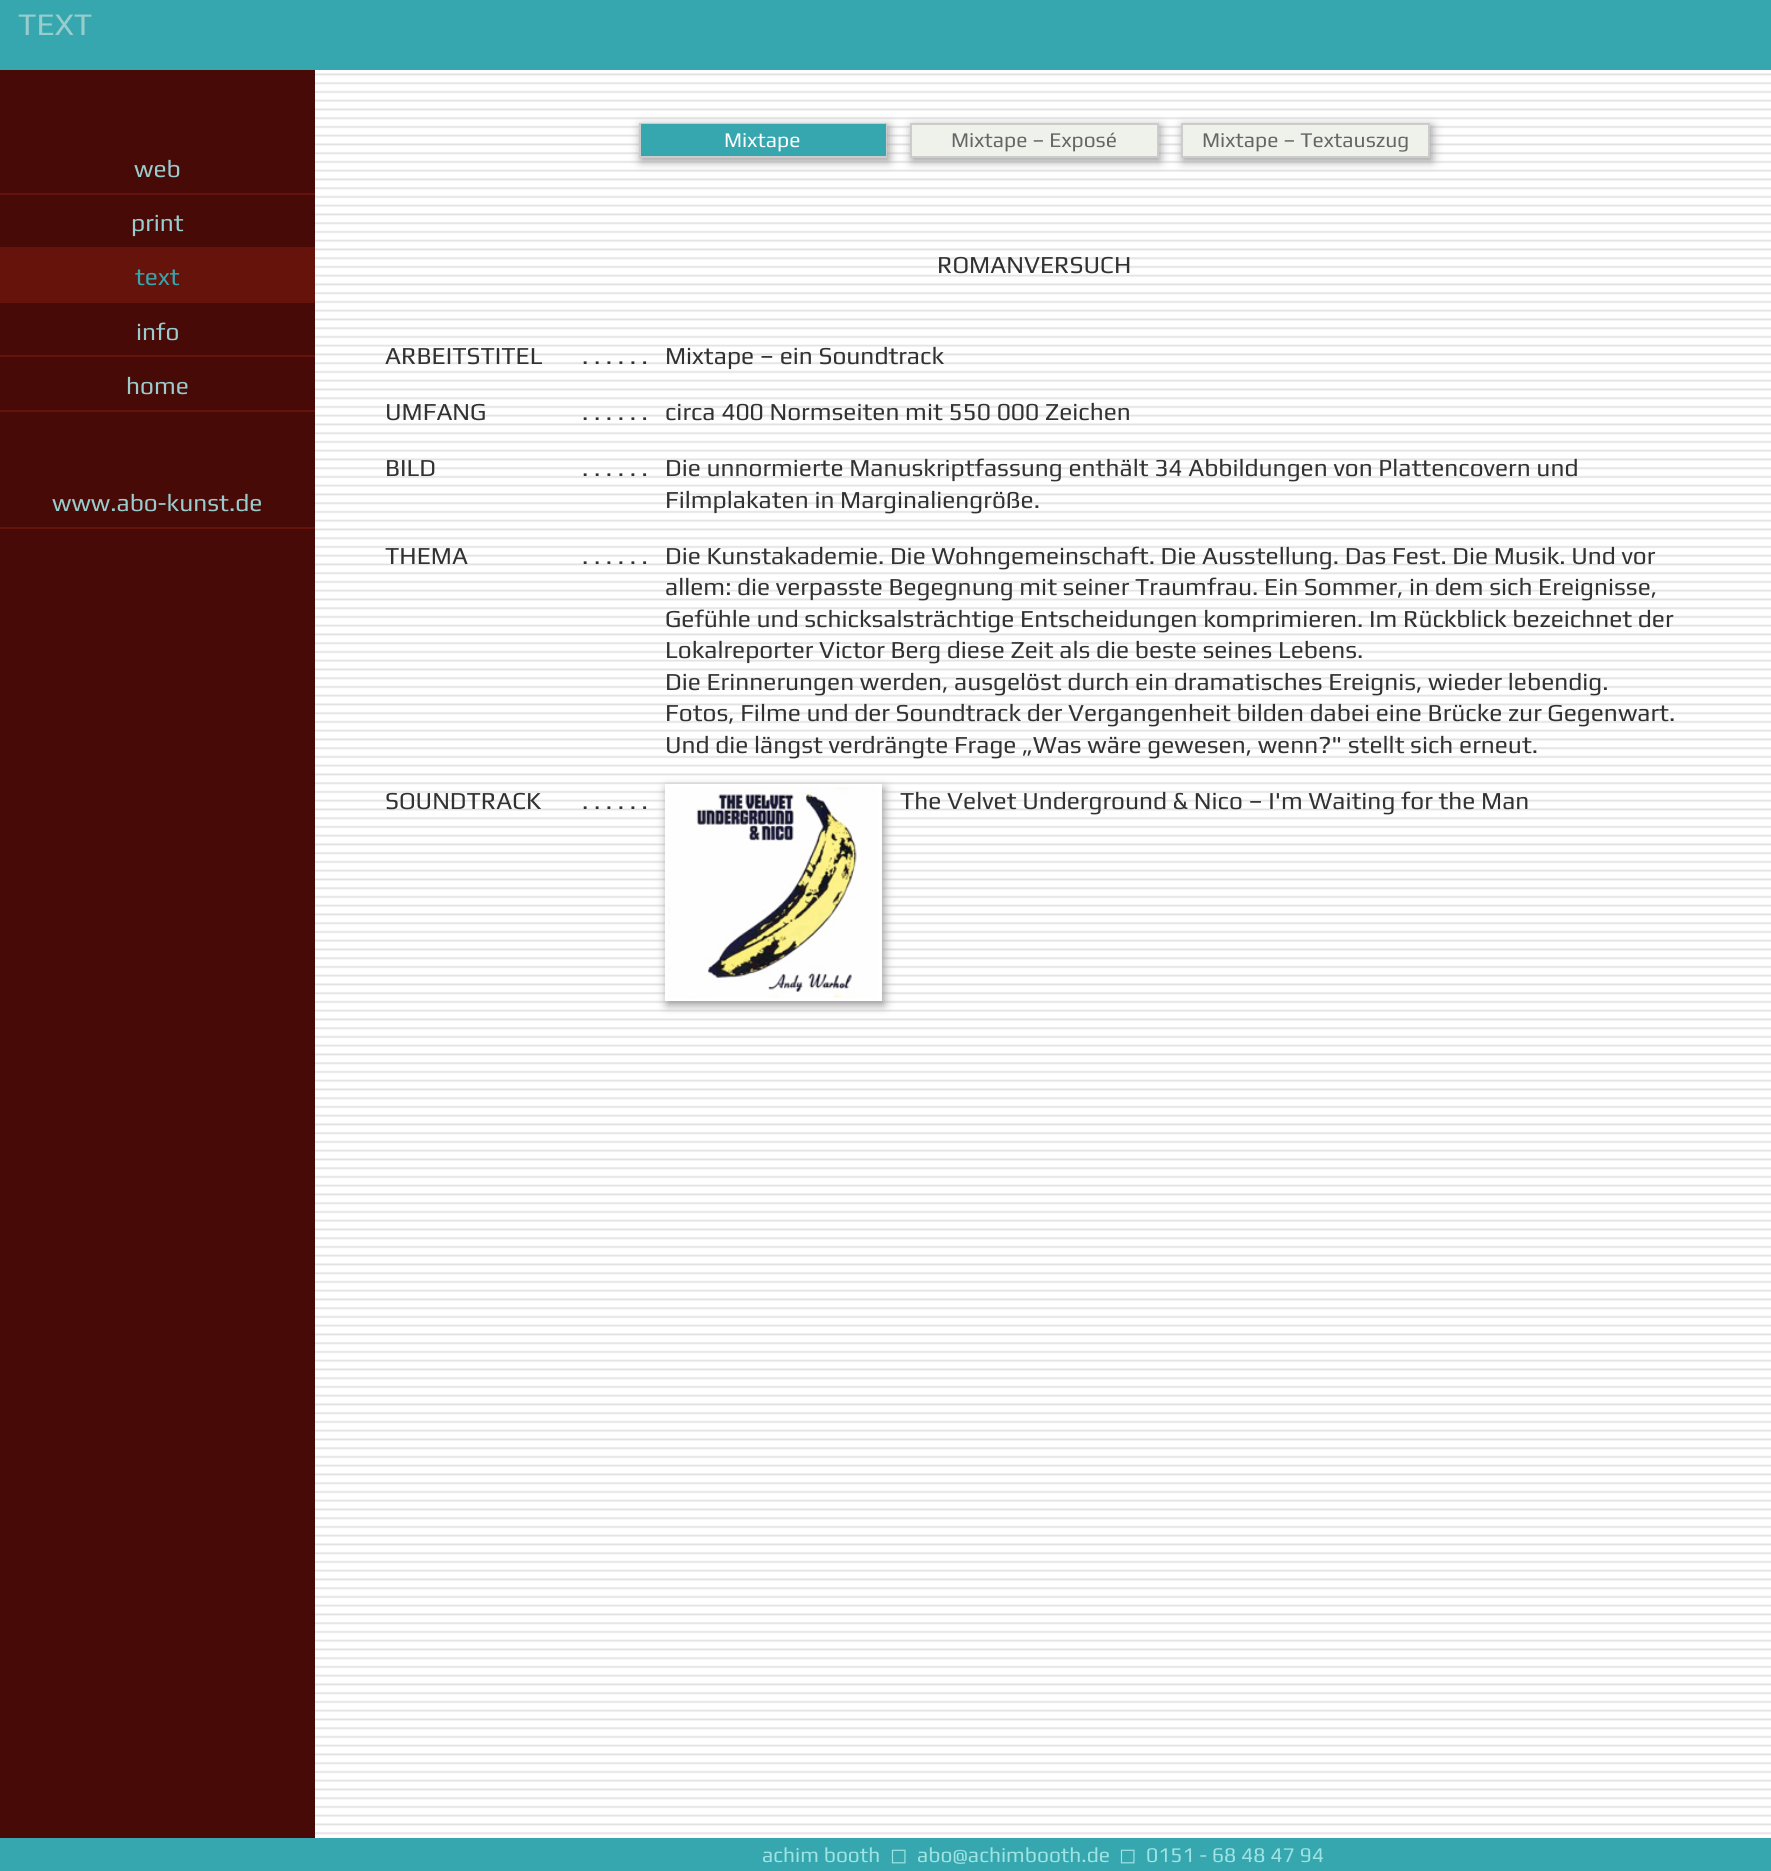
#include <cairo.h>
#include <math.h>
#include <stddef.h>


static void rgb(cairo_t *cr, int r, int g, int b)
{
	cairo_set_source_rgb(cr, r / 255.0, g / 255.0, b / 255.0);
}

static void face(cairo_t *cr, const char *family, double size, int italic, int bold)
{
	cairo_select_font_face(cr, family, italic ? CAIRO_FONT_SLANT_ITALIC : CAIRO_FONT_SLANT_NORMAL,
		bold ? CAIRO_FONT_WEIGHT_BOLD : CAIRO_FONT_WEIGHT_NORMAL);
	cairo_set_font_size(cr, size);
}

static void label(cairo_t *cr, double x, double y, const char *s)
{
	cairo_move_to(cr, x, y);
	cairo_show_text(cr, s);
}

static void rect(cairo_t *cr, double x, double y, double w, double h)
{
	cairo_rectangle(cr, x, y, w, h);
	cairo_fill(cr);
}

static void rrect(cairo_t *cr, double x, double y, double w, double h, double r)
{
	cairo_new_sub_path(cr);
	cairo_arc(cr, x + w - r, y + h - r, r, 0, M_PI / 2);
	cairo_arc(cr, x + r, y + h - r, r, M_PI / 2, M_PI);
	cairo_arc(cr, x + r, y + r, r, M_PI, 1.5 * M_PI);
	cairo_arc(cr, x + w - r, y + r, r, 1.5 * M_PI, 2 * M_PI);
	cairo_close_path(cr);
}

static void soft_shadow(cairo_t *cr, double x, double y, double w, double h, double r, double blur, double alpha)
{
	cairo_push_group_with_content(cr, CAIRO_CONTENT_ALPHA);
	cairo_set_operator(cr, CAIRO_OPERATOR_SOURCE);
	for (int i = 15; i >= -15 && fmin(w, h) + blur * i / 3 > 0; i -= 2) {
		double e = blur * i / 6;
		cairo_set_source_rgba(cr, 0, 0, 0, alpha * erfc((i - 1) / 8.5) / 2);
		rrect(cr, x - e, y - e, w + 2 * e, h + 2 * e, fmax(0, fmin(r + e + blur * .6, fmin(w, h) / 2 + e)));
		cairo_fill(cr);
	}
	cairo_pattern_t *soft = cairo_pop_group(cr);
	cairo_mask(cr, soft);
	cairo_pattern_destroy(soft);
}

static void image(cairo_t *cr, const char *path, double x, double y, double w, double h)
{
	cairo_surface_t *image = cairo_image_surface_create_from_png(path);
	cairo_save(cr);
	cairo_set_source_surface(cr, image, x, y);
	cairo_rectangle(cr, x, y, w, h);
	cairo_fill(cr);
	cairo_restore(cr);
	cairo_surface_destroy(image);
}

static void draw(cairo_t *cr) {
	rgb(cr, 255, 255, 255);
	cairo_paint(cr);
	rgb(cr, 54, 167, 175);
	rect(cr, 0, 0, 1771, 70);
	face(cr, "Play", 31.5, 0, 0);
	rgb(cr, 153, 204, 204);
	label(cr, 18, 35, "TEXT");
	rgb(cr, 71, 10, 7);
	rect(cr, 0, 70, 315, 1768);
	rgb(cr, 101, 19, 11);
	rect(cr, 0, 193, 315, 2);
	face(cr, "Play", 24.5, 0, 0);
	rgb(cr, 153, 204, 204);
	label(cr, 134, 177, "web");
	rgb(cr, 101, 19, 11);
	rect(cr, 0, 247, 315, 56);
	rgb(cr, 153, 204, 204);
	label(cr, 131, 231, "print");
	rgb(cr, 54, 167, 175);
	label(cr, 135, 285, "text");
	rgb(cr, 101, 19, 11);
	rect(cr, 0, 355, 315, 2);
	rgb(cr, 153, 204, 204);
	label(cr, 136, 340, "info");
	rgb(cr, 101, 19, 11);
	rect(cr, 0, 410, 315, 2);
	rgb(cr, 153, 204, 204);
	label(cr, 126, 394, "home");
	rgb(cr, 101, 19, 11);
	rect(cr, 0, 527, 315, 2);
	rgb(cr, 153, 204, 204);
	label(cr, 52, 511, "www.abo-kunst.de");
	image(cr, "image0.png", 315, 73, 1456, 1762);
	rgb(cr, 153, 153, 153);
	soft_shadow(cr, 641, 126, 248, 35, 0, 5, 1);
	cairo_rectangle(cr, 640, 124, 246, 33);
	rgb(cr, 204, 204, 204);
	cairo_stroke(cr);
	rgb(cr, 54, 167, 175);
	rect(cr, 641, 124, 245, 32);
	face(cr, "Play", 21, 0, 0);
	rgb(cr, 255, 255, 255);
	label(cr, 724, 147, "Mixtape");
	rgb(cr, 153, 153, 153);
	soft_shadow(cr, 912, 126, 248, 35, 0, 5, 1);
	rgb(cr, 239, 242, 235);
	cairo_rectangle(cr, 911, 124, 247, 33);
	cairo_fill_preserve(cr);
	rgb(cr, 204, 204, 204);
	cairo_stroke(cr);
	rgb(cr, 102, 102, 102);
	label(cr, 951, 147, "Mixtape – Exposé");
	rgb(cr, 153, 153, 153);
	soft_shadow(cr, 1183, 126, 249, 35, 0, 5, 1);
	rgb(cr, 239, 242, 235);
	cairo_rectangle(cr, 1182, 124, 247, 33);
	cairo_fill_preserve(cr);
	rgb(cr, 204, 204, 204);
	cairo_stroke(cr);
	rgb(cr, 102, 102, 102);
	label(cr, 1202, 147, "Mixtape – Textauszug");
	face(cr, "Play", 24.5, 0, 0);
	rgb(cr, 50, 50, 50);
	label(cr, 937, 273, "ROMANVERSUCH");
	label(cr, 385, 364, "ARBEITSTITEL");
	label(cr, 582, 364, ". . . . . .");
	label(cr, 665, 364, "Mixtape – ein Soundtrack");
	label(cr, 385, 420, "UMFANG");
	label(cr, 582, 420, ". . . . . .");
	label(cr, 665, 420, "circa 400 Normseiten mit 550 000 Zeichen");
	label(cr, 385, 476, "BILD");
	label(cr, 582, 476, ". . . . . .");
	label(cr, 665, 476, "Die unnormierte Manuskriptfassung enthält 34 Abbildungen von Plattencovern und");
	label(cr, 665, 508, "Filmplakaten in Marginaliengröße.");
	label(cr, 385, 564, "THEMA");
	label(cr, 582, 564, ". . . . . .");
	label(cr, 665, 564, "Die Kunstakademie. Die Wohngemeinschaft. Die Ausstellung. Das Fest. Die Musik. Und vor");
	label(cr, 665, 595, "allem: die verpasste Begegnung mit seiner Traumfrau. Ein Sommer, in dem sich Ereignisse,");
	label(cr, 665, 627, "Gefühle und schicksalsträchtige Entscheidungen komprimieren. Im Rückblick bezeichnet der");
	label(cr, 665, 658, "Lokalreporter Victor Berg diese Zeit als die beste seines Lebens.");
	label(cr, 665, 690, "Die Erinnerungen werden, ausgelöst durch ein dramatisches Ereignis, wieder lebendig.");
	label(cr, 665, 721, "Fotos, Filme und der Soundtrack der Vergangenheit bilden dabei eine Brücke zur Gegenwart.");
	label(cr, 665, 753, "Und die längst verdrängte Frage „Was wäre gewesen, wenn?\" stellt sich erneut.");
	label(cr, 385, 809, "SOUNDTRACK");
	label(cr, 582, 809, ". . . . . .");
	rgb(cr, 153, 153, 153);
	soft_shadow(cr, 667, 788, 217, 217, 0, 5, 1);
	cairo_rectangle(cr, 667, 786, 213, 213);
	rgb(cr, 255, 255, 255);
	cairo_set_line_width(cr, 4);
	cairo_stroke(cr);
	image(cr, "image1.png", 668, 787, 210, 211);
	rgb(cr, 50, 50, 50);
	label(cr, 900, 809, "The Velvet Underground & Nico – I'm Waiting for the Man");
	rgb(cr, 54, 167, 175);
	rect(cr, 0, 1838, 1771, 33);
	face(cr, "Play", 21, 0, 0);
	rgb(cr, 159, 227, 227);
	label(cr, 762, 1862, "achim booth");
	face(cr, "DejaVu Sans", 21, 0, 0);
	label(cr, 890, 1862, "◻");
	face(cr, "Play", 21, 0, 0);
	label(cr, 917, 1862, "abo@achimbooth.de");
	face(cr, "DejaVu Sans", 21, 0, 0);
	label(cr, 1119, 1862, "◻");
	face(cr, "Play", 21, 0, 0);
	label(cr, 1146, 1862, "0151 - 68 48 47 94");
}

int main(void) {
	cairo_surface_t *surface = cairo_image_surface_create(CAIRO_FORMAT_RGB24, 1771, 1871);
	cairo_t *cr = cairo_create(surface);
	cairo_font_options_t *options = cairo_font_options_create();
	cairo_font_options_set_hint_metrics(options, CAIRO_HINT_METRICS_OFF);
	cairo_font_options_set_hint_style(options, CAIRO_HINT_STYLE_NONE);
	cairo_set_font_options(cr, options);
	cairo_set_miter_limit(cr, 4);
	draw(cr);
	cairo_surface_write_to_png(surface, "render.png");
	cairo_font_options_destroy(options);
	cairo_destroy(cr);
	cairo_surface_destroy(surface);
	return 0;
}
